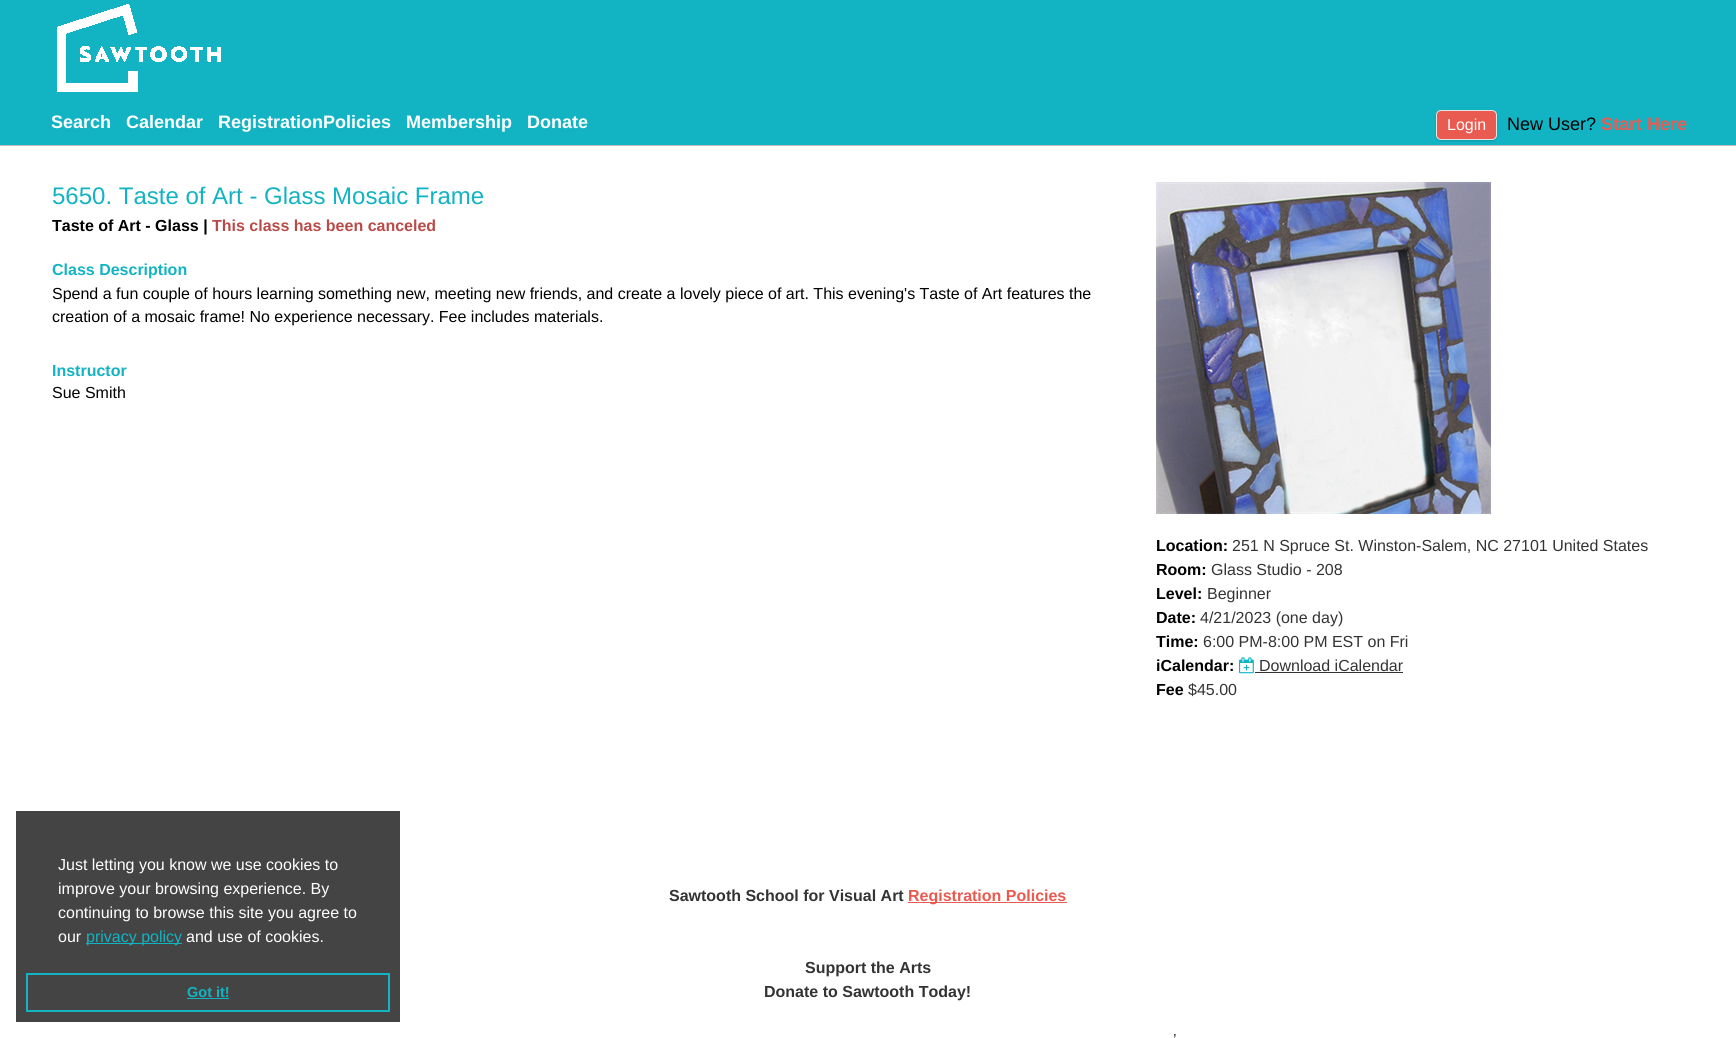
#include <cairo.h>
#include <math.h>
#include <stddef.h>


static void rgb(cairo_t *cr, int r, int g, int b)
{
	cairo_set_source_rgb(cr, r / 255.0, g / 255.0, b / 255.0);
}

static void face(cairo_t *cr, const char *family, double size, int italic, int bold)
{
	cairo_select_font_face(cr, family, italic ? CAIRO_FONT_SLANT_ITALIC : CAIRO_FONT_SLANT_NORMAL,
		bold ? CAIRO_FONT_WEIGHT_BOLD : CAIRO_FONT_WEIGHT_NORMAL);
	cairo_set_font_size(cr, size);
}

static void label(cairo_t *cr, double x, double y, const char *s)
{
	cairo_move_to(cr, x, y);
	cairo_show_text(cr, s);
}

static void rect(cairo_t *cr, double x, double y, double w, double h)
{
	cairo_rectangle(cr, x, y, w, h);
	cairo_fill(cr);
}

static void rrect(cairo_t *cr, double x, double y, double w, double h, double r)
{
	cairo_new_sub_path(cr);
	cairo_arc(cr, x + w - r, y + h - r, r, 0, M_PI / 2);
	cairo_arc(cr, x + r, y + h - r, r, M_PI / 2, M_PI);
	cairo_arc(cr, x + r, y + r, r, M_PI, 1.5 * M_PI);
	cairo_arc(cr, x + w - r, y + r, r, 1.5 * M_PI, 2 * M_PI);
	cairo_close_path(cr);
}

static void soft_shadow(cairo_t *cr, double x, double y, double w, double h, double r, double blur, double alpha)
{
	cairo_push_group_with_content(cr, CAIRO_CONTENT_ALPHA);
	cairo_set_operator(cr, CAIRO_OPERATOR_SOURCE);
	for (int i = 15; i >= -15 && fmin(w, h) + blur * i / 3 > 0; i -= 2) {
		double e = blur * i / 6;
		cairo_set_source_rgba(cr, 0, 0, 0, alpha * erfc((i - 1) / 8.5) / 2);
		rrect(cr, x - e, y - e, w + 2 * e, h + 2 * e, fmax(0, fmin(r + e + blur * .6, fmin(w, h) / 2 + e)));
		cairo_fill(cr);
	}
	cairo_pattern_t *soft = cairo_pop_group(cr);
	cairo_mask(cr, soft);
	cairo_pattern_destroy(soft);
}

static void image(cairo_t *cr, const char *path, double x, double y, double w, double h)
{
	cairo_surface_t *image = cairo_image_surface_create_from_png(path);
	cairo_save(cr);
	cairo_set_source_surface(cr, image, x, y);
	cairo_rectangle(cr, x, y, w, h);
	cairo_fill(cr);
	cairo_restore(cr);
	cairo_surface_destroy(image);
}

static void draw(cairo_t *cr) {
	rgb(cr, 255, 255, 255);
	cairo_paint(cr);
	rgb(cr, 18, 179, 195);
	rect(cr, 0, 0, 1736, 145);
	rgb(cr, 192, 192, 192);
	rect(cr, 0, 145, 1736, 1);
	image(cr, "image0.png", 57, 4, 164, 88);
	face(cr, "Liberation Sans", 18, 0, 1);
	rgb(cr, 255, 255, 255);
	label(cr, 51, 128, "Search");
	label(cr, 126, 128, "Calendar");
	label(cr, 218, 128, "RegistrationPolicies");
	label(cr, 406, 128, "Membership");
	label(cr, 527, 128, "Donate");
	rgb(cr, 0, 0, 0);
	soft_shadow(cr, 1436, 111, 61, 30, 5, 1, 0.16);
	rgb(cr, 233, 90, 80);
	rrect(cr, 1436.5, 110.5, 60, 29, 4.5);
	cairo_fill_preserve(cr);
	rgb(cr, 229, 229, 229);
	cairo_set_line_width(cr, 1);
	cairo_stroke(cr);
	face(cr, "Liberation Sans", 16, 0, 0);
	rgb(cr, 255, 255, 255);
	label(cr, 1447, 130, "Login");
	face(cr, "Liberation Sans", 18, 0, 0);
	rgb(cr, 0, 0, 0);
	label(cr, 1507, 130, "New User?");
	face(cr, "Liberation Sans", 18, 0, 1);
	rgb(cr, 233, 90, 80);
	label(cr, 1601, 130, "Start Here");
	face(cr, "Liberation Sans", 24, 0, 0);
	rgb(cr, 18, 179, 195);
	label(cr, 52, 204, "5650. Taste of Art - Glass Mosaic Frame");
	face(cr, "Liberation Sans", 16, 0, 1);
	rgb(cr, 0, 0, 0);
	label(cr, 52, 231, "Taste of Art - Glass |");
	rgb(cr, 185, 74, 72);
	label(cr, 212, 231, "This class has been canceled");
	rgb(cr, 18, 179, 195);
	label(cr, 52, 275, "Class Description");
	face(cr, "Liberation Sans", 16, 0, 0);
	rgb(cr, 0, 0, 0);
	label(cr, 52, 299, "Spend a fun couple of hours learning something new, meeting new friends, and create a lovely piece of art. This evening's Taste of Art features the");
	label(cr, 52, 322, "creation of a mosaic frame! No experience necessary. Fee includes materials.");
	face(cr, "Liberation Sans", 16, 0, 1);
	rgb(cr, 18, 179, 195);
	label(cr, 52, 376, "Instructor");
	face(cr, "Liberation Sans", 16, 0, 0);
	rgb(cr, 0, 0, 0);
	label(cr, 52, 398, "Sue Smith");
	image(cr, "image1.png", 1156, 182, 335, 332);
	face(cr, "Liberation Sans", 16, 0, 1);
	label(cr, 1156, 551, "Location:");
	face(cr, "Liberation Sans", 16, 0, 0);
	rgb(cr, 51, 51, 51);
	label(cr, 1232, 551, "251 N Spruce St. Winston-Salem, NC 27101 United States");
	face(cr, "Liberation Sans", 16, 0, 1);
	rgb(cr, 0, 0, 0);
	label(cr, 1156, 575, "Room:");
	face(cr, "Liberation Sans", 16, 0, 0);
	rgb(cr, 51, 51, 51);
	label(cr, 1211, 575, "Glass Studio - 208");
	face(cr, "Liberation Sans", 16, 0, 1);
	rgb(cr, 0, 0, 0);
	label(cr, 1156, 599, "Level:");
	face(cr, "Liberation Sans", 16, 0, 0);
	rgb(cr, 51, 51, 51);
	label(cr, 1207, 599, "Beginner");
	face(cr, "Liberation Sans", 16, 0, 1);
	rgb(cr, 0, 0, 0);
	label(cr, 1156, 623, "Date:");
	face(cr, "Liberation Sans", 16, 0, 0);
	rgb(cr, 51, 51, 51);
	label(cr, 1200, 623, "4/21/2023 (one day)");
	face(cr, "Liberation Sans", 16, 0, 1);
	rgb(cr, 0, 0, 0);
	label(cr, 1156, 647, "Time:");
	face(cr, "Liberation Sans", 16, 0, 0);
	rgb(cr, 51, 51, 51);
	label(cr, 1203, 647, "6:00 PM-8:00 PM EST on Fri");
	face(cr, "Liberation Sans", 16, 0, 1);
	rgb(cr, 0, 0, 0);
	label(cr, 1156, 671, "iCalendar:");
	image(cr, "image2.png", 1239, 657, 15, 17);
	face(cr, "Liberation Sans", 16, 0, 0);
	rgb(cr, 51, 51, 51);
	label(cr, 1259, 671, "Download iCalendar");
	rect(cr, 1255, 672, 148, 1);
	face(cr, "Liberation Sans", 16, 0, 1);
	rgb(cr, 0, 0, 0);
	label(cr, 1156, 695, "Fee");
	face(cr, "Liberation Sans", 16, 0, 0);
	rgb(cr, 51, 51, 51);
	label(cr, 1188, 695, "$45.00");
	face(cr, "Liberation Sans", 16, 0, 1);
	label(cr, 669, 901, "Sawtooth School for Visual Art");
	rgb(cr, 233, 90, 80);
	rect(cr, 908, 902, 159, 1);
	label(cr, 908, 901, "Registration Policies");
	rgb(cr, 51, 51, 51);
	label(cr, 805, 973, "Support the Arts");
	label(cr, 764, 997, "Donate to Sawtooth Today!");
	face(cr, "Liberation Sans", 16, 0, 0);
	label(cr, 1173, 1045, "’");
	rgb(cr, 68, 68, 68);
	rect(cr, 16, 811, 384, 211);
	rgb(cr, 255, 255, 255);
	label(cr, 58, 870, "Just letting you know we use cookies to");
	label(cr, 58, 894, "improve your browsing experience. By");
	label(cr, 58, 918, "continuing to browse this site you agree to");
	label(cr, 58, 942, "our");
	rgb(cr, 18, 179, 195);
	rect(cr, 86, 943, 96, 1);
	label(cr, 86, 942, "privacy policy");
	rgb(cr, 255, 255, 255);
	label(cr, 186, 942, "and use of cookies.");
	cairo_rectangle(cr, 27, 974, 362, 37);
	rgb(cr, 18, 179, 195);
	cairo_set_line_width(cr, 2);
	cairo_stroke(cr);
	face(cr, "Liberation Sans", 14.5, 0, 1);
	label(cr, 187, 997, "Got it!");
	rect(cr, 187, 998, 42, 1);
}

int main(void) {
	cairo_surface_t *surface = cairo_image_surface_create(CAIRO_FORMAT_RGB24, 1736, 1038);
	cairo_t *cr = cairo_create(surface);
	cairo_font_options_t *options = cairo_font_options_create();
	cairo_font_options_set_hint_metrics(options, CAIRO_HINT_METRICS_OFF);
	cairo_font_options_set_hint_style(options, CAIRO_HINT_STYLE_NONE);
	cairo_set_font_options(cr, options);
	cairo_set_miter_limit(cr, 4);
	draw(cr);
	cairo_surface_write_to_png(surface, "render.png");
	cairo_font_options_destroy(options);
	cairo_destroy(cr);
	cairo_surface_destroy(surface);
	return 0;
}
